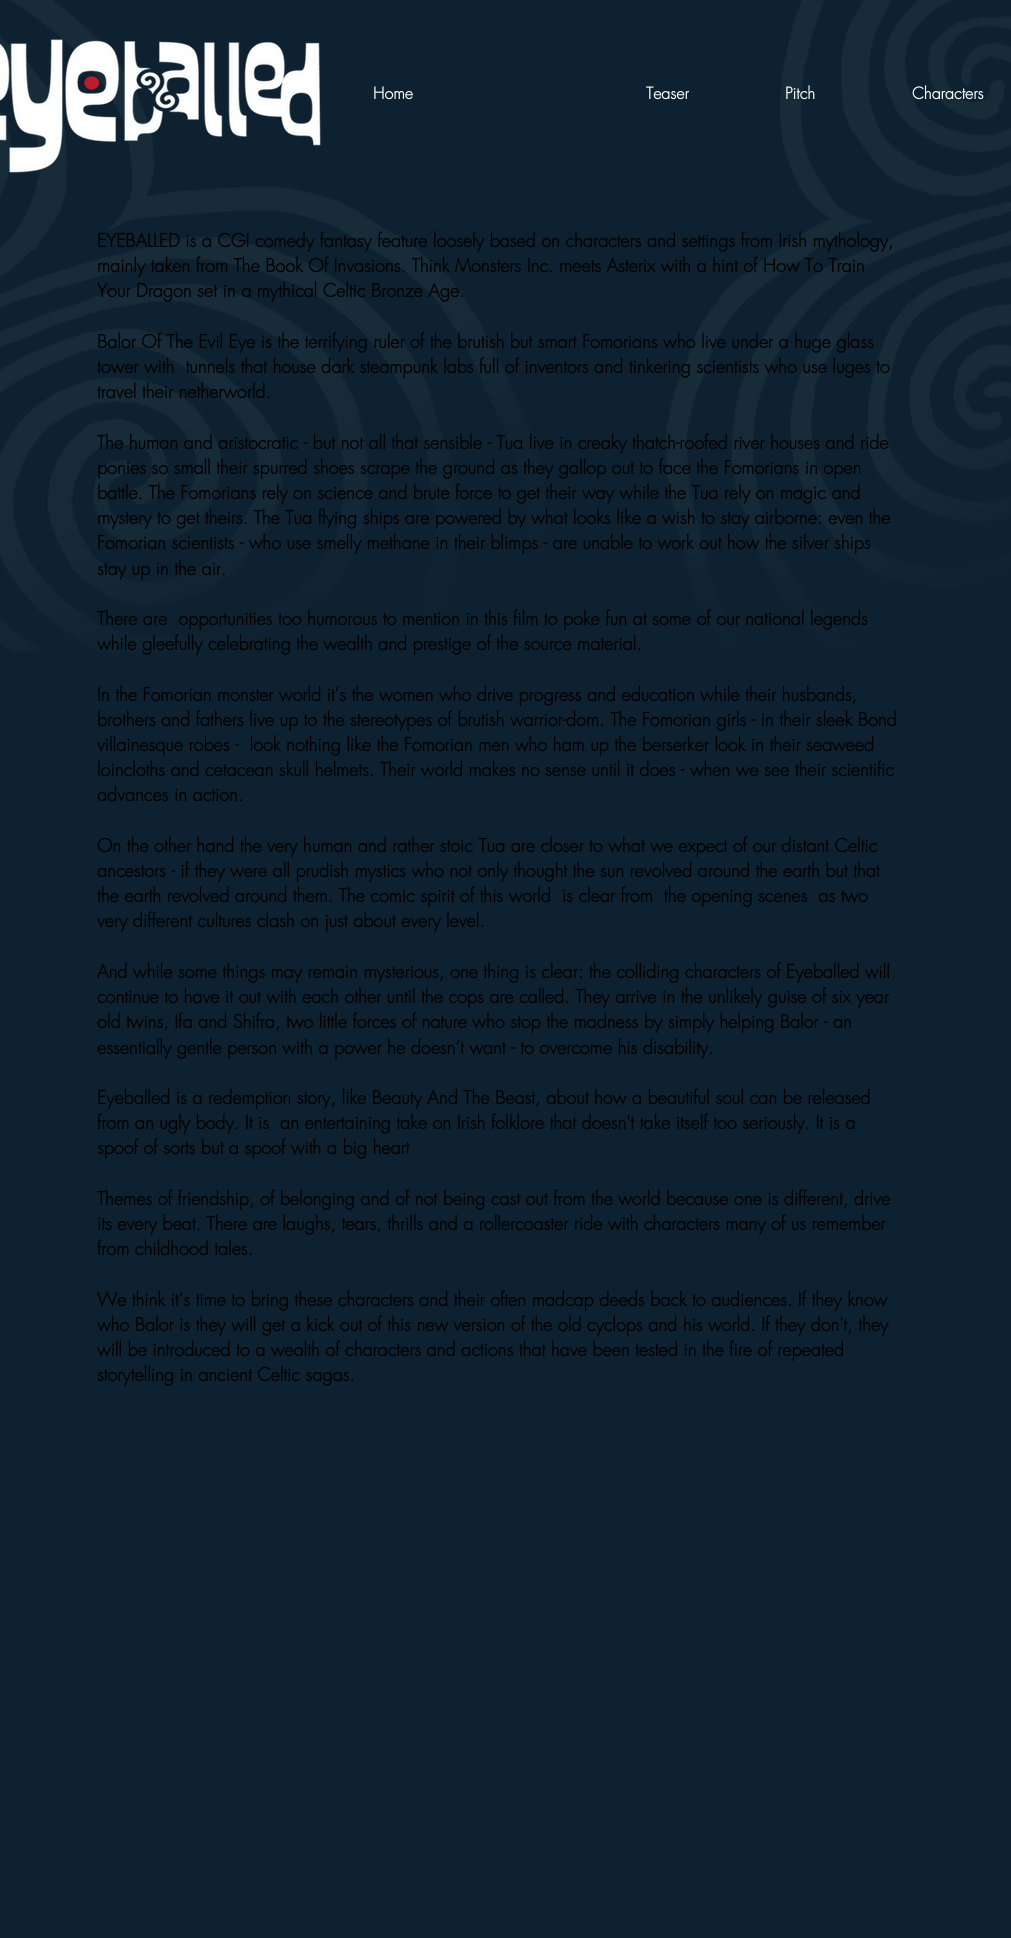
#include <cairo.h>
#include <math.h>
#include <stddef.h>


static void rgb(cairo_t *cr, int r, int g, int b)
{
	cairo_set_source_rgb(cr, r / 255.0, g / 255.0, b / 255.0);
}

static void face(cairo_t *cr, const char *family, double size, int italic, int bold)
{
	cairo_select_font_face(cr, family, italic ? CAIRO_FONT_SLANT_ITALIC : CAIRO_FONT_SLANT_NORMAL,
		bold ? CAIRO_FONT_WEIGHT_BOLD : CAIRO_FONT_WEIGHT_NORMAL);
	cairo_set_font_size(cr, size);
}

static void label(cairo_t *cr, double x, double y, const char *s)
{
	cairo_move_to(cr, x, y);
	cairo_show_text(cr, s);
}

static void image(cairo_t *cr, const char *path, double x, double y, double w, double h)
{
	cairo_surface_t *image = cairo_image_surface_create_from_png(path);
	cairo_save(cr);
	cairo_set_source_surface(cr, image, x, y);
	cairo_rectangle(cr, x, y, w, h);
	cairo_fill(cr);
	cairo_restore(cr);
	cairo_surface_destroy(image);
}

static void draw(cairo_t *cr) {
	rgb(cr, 13, 33, 48);
	cairo_paint(cr);
	image(cr, "image0.png", 0, 0, 1011, 652);
	image(cr, "image1.png", 0, 39, 323, 134);
	face(cr, "futura", 16, 0, 1);
	rgb(cr, 255, 255, 255);
	label(cr, 373, 99, "Home");
	label(cr, 646, 99, "Teaser");
	label(cr, 785, 99, "Pitch");
	label(cr, 912, 99, "Characters");
	face(cr, "futura", 18, 0, 1);
	rgb(cr, 0, 0, 0);
	label(cr, 97, 247, "EYEBALLED is a CGI comedy fantasy feature loosely based on characters and settings from Irish mythology,");
	label(cr, 97, 272, "mainly taken from The Book Of Invasions. Think Monsters Inc. meets Asterix with a hint of How To Train");
	label(cr, 97, 297, "Your Dragon set in a mythical Celtic Bronze Age.");
	label(cr, 97, 348, "Balor Of The Evil Eye is the terrifying ruler of the brutish but smart Fomorians who live under a huge glass");
	label(cr, 97, 373, "tower with  tunnels that house dark steampunk labs full of inventors and tinkering scientists who use luges to");
	label(cr, 97, 398, "travel their netherworld.");
	label(cr, 97, 449, "The human and aristocratic - but not all that sensible - Tua live in creaky thatch-roofed river houses and ride");
	label(cr, 97, 474, "ponies so small their spurred shoes scrape the ground as they gallop out to face the Fomorians in open");
	label(cr, 97, 499, "battle. The Fomorians rely on science and brute force to get their way while the Tua rely on magic and");
	label(cr, 97, 524, "mystery to get theirs. The Tua flying ships are powered by what looks like a wish to stay airborne: even the");
	label(cr, 97, 549, "Fomorian scientists - who use smelly methane in their blimps - are unable to work out how the silver ships");
	label(cr, 97, 575, "stay up in the air.");
	label(cr, 97, 625, "There are  opportunities too humorous to mention in this film to poke fun at some of our national legends");
	label(cr, 97, 650, "while gleefully celebrating the wealth and prestige of the source material.");
	label(cr, 97, 701, "In the Fomorian monster world it’s the women who drive progress and education while their husbands,");
	label(cr, 97, 726, "brothers and fathers live up to the stereotypes of brutish warrior-dom. The Fomorian girls - in their sleek Bond");
	label(cr, 97, 751, "villainesque robes -  look nothing like the Fomorian men who ham up the berserker look in their seaweed");
	label(cr, 97, 776, "loincloths and cetacean skull helmets. Their world makes no sense until it does - when we see their scientific");
	label(cr, 97, 801, "advances in action.");
	label(cr, 97, 852, "On the other hand the very human and rather stoic Tua are closer to what we expect of our distant Celtic");
	label(cr, 97, 877, "ancestors - if they were all prudish mystics who not only thought the sun revolved around the earth but that");
	label(cr, 97, 902, "the earth revolved around them. The comic spirit of this world  is clear from  the opening scenes  as two");
	label(cr, 97, 927, "very different cultures clash on just about every level.");
	label(cr, 97, 978, "And while some things may remain mysterious, one thing is clear: the colliding characters of Eyeballed will");
	label(cr, 97, 1003, "continue to have it out with each other until the cops are called. They arrive in the unlikely guise of six year");
	label(cr, 97, 1028, "old twins, Ifa and Shifra, two little forces of nature who stop the madness by simply helping Balor - an");
	label(cr, 97, 1054, "essentially gentle person with a power he doesn’t want - to overcome his disability.");
	label(cr, 97, 1104, "Eyeballed is a redemption story, like Beauty And The Beast, about how a beautiful soul can be released");
	label(cr, 97, 1129, "from an ugly body. It is  an entertaining take on Irish folklore that doesn't take itself too seriously. It is a");
	label(cr, 97, 1154, "spoof of sorts but a spoof with a big heart");
	label(cr, 97, 1205, "Themes of friendship, of belonging and of not being cast out from the world because one is different, drive");
	label(cr, 97, 1230, "its every beat. There are laughs, tears, thrills and a rollercoaster ride with characters many of us remember");
	label(cr, 97, 1255, "from childhood tales.");
	label(cr, 97, 1306, "We think it’s time to bring these characters and their often madcap deeds back to audiences. If they know");
	label(cr, 97, 1331, "who Balor is they will get a kick out of this new version of the old cyclops and his world. If they don't, they");
	label(cr, 97, 1356, "will be introduced to a wealth of characters and actions that have been tested in the fire of repeated");
	label(cr, 97, 1381, "storytelling in ancient Celtic sagas.");
}

int main(void) {
	cairo_surface_t *surface = cairo_image_surface_create(CAIRO_FORMAT_RGB24, 1011, 1938);
	cairo_t *cr = cairo_create(surface);
	cairo_font_options_t *options = cairo_font_options_create();
	cairo_font_options_set_hint_metrics(options, CAIRO_HINT_METRICS_OFF);
	cairo_font_options_set_hint_style(options, CAIRO_HINT_STYLE_NONE);
	cairo_set_font_options(cr, options);
	cairo_set_miter_limit(cr, 4);
	draw(cr);
	cairo_surface_write_to_png(surface, "render.png");
	cairo_font_options_destroy(options);
	cairo_destroy(cr);
	cairo_surface_destroy(surface);
	return 0;
}
